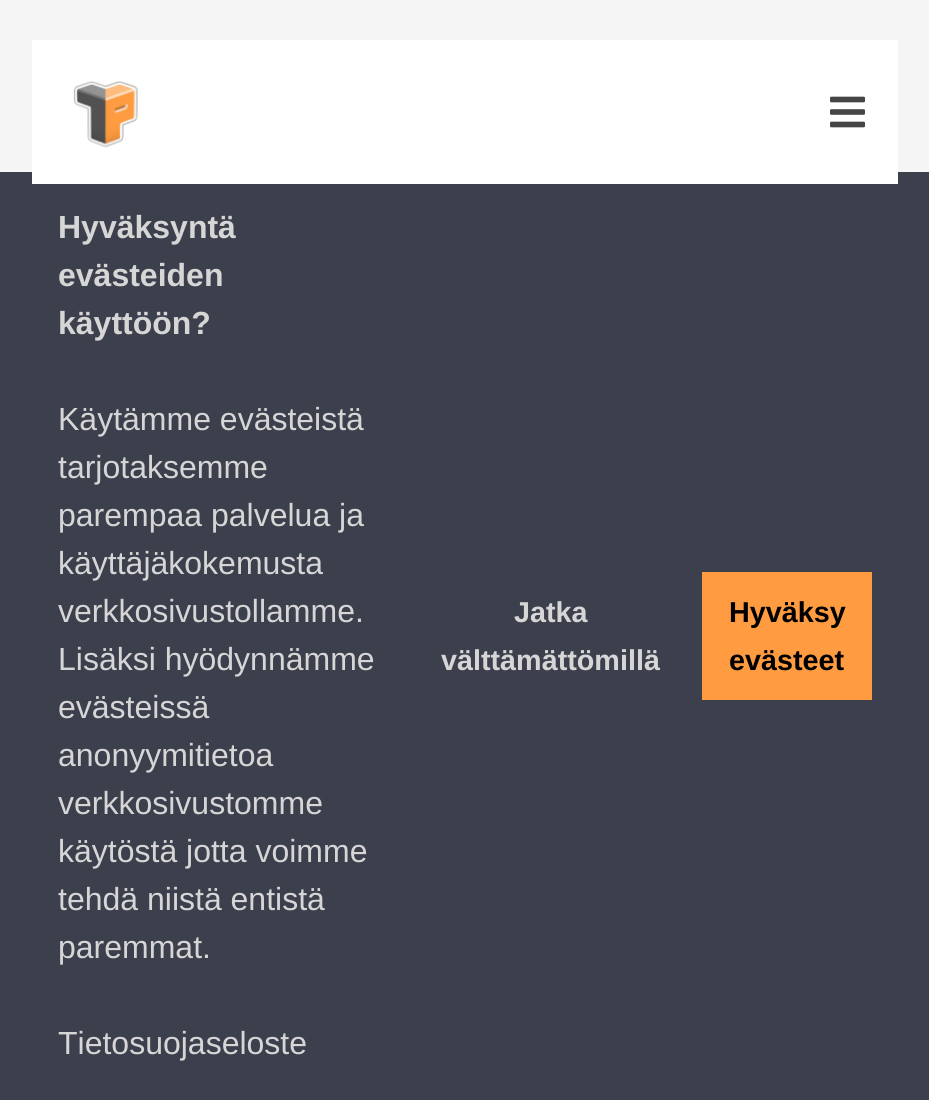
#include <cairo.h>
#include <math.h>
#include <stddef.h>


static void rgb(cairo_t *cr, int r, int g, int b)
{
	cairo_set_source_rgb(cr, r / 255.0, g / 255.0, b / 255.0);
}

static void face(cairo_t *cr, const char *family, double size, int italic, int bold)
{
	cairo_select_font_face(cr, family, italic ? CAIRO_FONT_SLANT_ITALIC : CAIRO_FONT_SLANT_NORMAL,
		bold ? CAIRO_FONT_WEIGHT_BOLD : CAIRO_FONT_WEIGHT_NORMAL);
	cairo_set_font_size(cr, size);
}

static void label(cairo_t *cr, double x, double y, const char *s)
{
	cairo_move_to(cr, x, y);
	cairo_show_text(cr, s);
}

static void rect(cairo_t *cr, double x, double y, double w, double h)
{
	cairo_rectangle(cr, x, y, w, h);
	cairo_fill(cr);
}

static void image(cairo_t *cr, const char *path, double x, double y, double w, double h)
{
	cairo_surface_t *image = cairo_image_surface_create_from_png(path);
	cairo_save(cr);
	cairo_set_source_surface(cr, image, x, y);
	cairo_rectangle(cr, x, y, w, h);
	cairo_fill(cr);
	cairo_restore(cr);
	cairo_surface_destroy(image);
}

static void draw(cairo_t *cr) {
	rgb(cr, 245, 245, 245);
	cairo_paint(cr);
	rgb(cr, 60, 64, 77);
	rect(cr, 0, 172, 929, 928);
	rgb(cr, 255, 255, 255);
	rect(cr, 32, 40, 866, 144);
	image(cr, "image0.png", 73, 80, 65, 68);
	image(cr, "image1.png", 830, 96, 35, 32);
	face(cr, "Liberation Sans", 32, 0, 1);
	rgb(cr, 214, 214, 214);
	label(cr, 58, 238, "Hyväksyntä");
	label(cr, 58, 286, "evästeiden");
	label(cr, 58, 334, "käyttöön?");
	face(cr, "Liberation Sans", 32, 0, 0);
	label(cr, 58, 430, "Käytämme evästeistä");
	label(cr, 58, 478, "tarjotaksemme");
	label(cr, 58, 526, "parempaa palvelua ja");
	label(cr, 58, 574, "käyttäjäkokemusta");
	label(cr, 58, 622, "verkkosivustollamme.");
	label(cr, 58, 670, "Lisäksi hyödynnämme");
	label(cr, 58, 718, "evästeissä");
	label(cr, 58, 766, "anonyymitietoa");
	label(cr, 58, 814, "verkkosivustomme");
	label(cr, 58, 862, "käytöstä jotta voimme");
	label(cr, 58, 910, "tehdä niistä entistä");
	label(cr, 58, 958, "paremmat.");
	label(cr, 58, 1054, "Tietosuojaseloste");
	face(cr, "Liberation Sans", 28.75, 0, 1);
	label(cr, 514, 622, "Jatka");
	label(cr, 441, 670, "välttämättömillä");
	rgb(cr, 255, 155, 65);
	rect(cr, 702, 572, 170, 128);
	rgb(cr, 0, 0, 0);
	label(cr, 729, 622, "Hyväksy");
	label(cr, 729, 670, "evästeet");
}

int main(void) {
	cairo_surface_t *surface = cairo_image_surface_create(CAIRO_FORMAT_RGB24, 929, 1100);
	cairo_t *cr = cairo_create(surface);
	cairo_font_options_t *options = cairo_font_options_create();
	cairo_font_options_set_hint_metrics(options, CAIRO_HINT_METRICS_OFF);
	cairo_font_options_set_hint_style(options, CAIRO_HINT_STYLE_NONE);
	cairo_set_font_options(cr, options);
	cairo_set_miter_limit(cr, 4);
	draw(cr);
	cairo_surface_write_to_png(surface, "render.png");
	cairo_font_options_destroy(options);
	cairo_destroy(cr);
	cairo_surface_destroy(surface);
	return 0;
}
